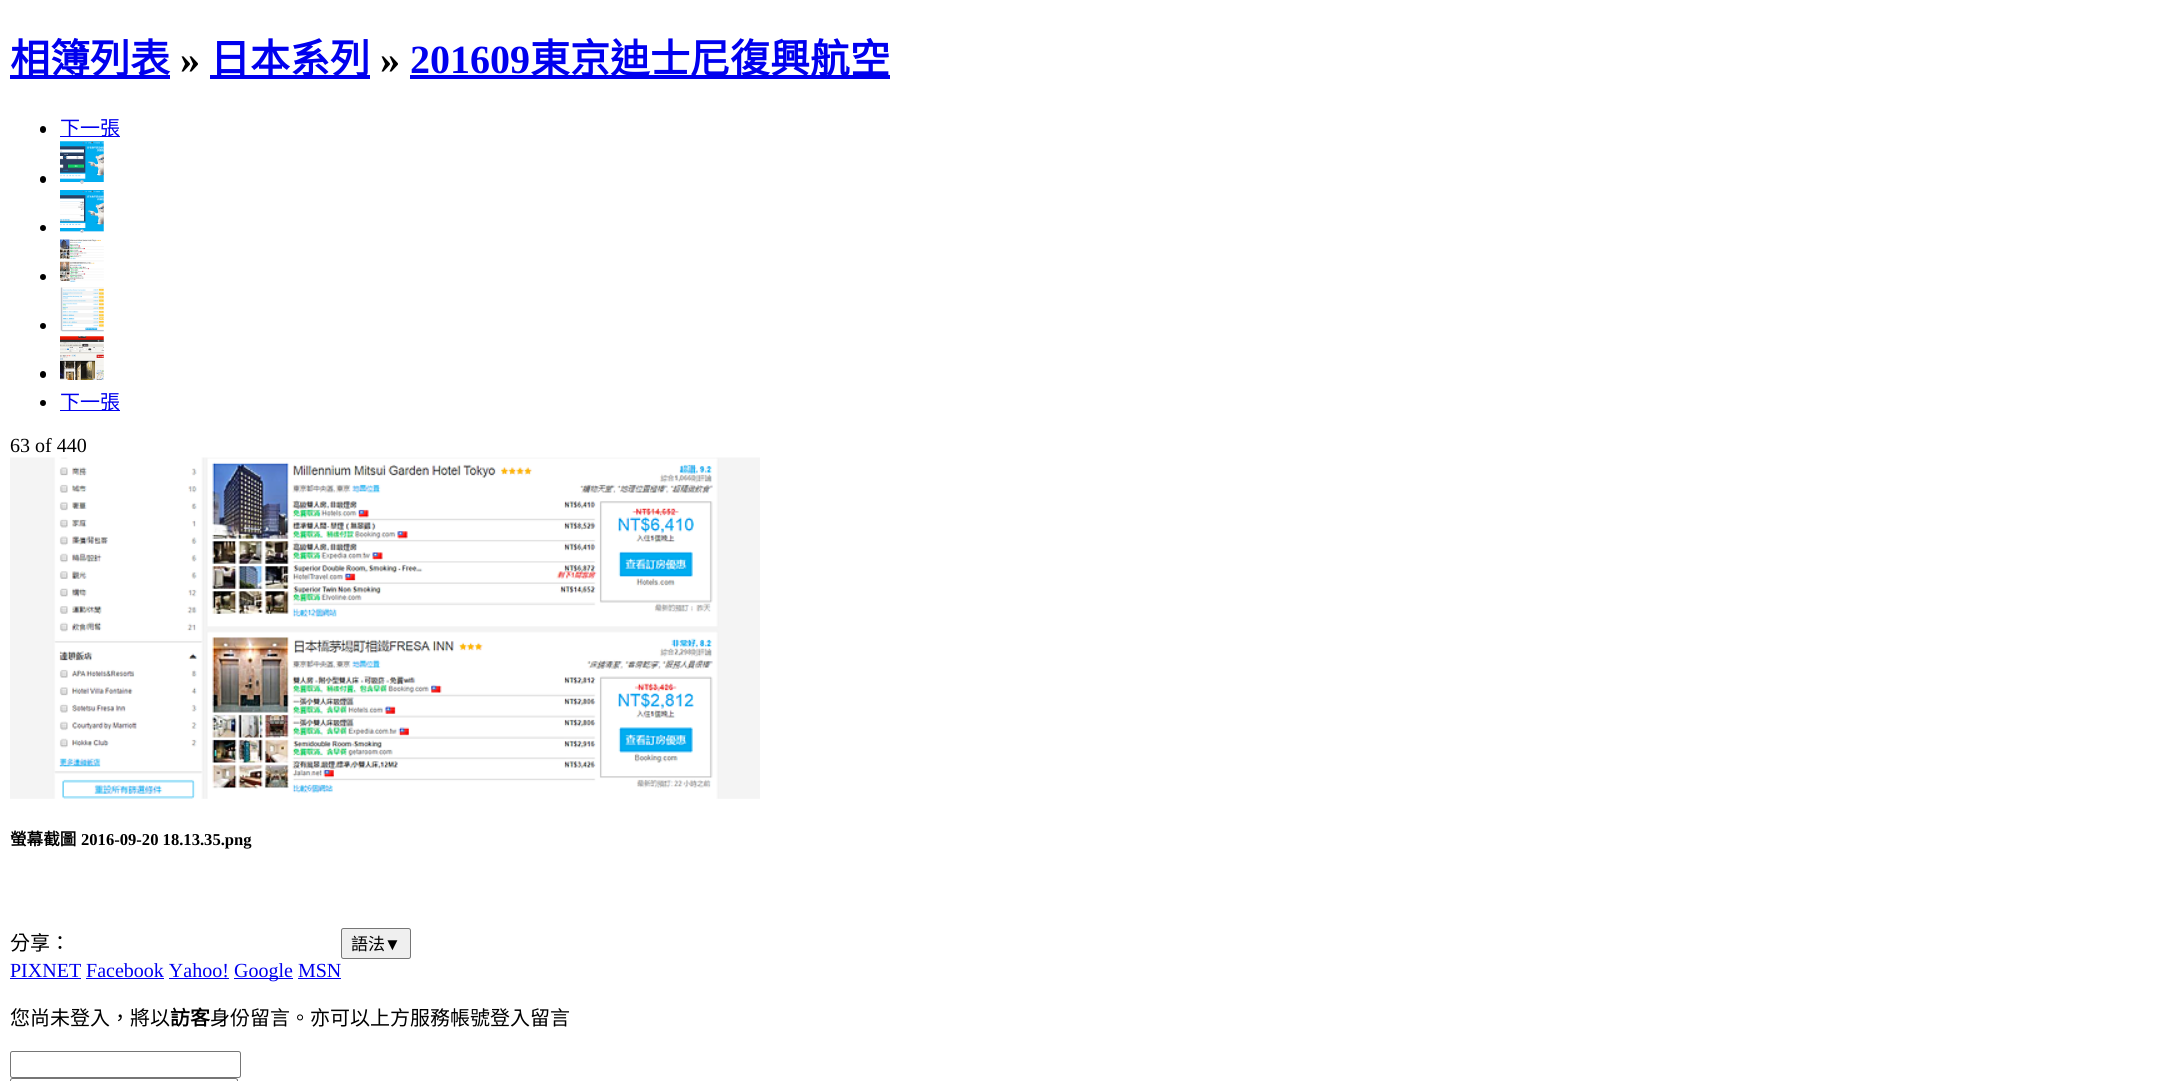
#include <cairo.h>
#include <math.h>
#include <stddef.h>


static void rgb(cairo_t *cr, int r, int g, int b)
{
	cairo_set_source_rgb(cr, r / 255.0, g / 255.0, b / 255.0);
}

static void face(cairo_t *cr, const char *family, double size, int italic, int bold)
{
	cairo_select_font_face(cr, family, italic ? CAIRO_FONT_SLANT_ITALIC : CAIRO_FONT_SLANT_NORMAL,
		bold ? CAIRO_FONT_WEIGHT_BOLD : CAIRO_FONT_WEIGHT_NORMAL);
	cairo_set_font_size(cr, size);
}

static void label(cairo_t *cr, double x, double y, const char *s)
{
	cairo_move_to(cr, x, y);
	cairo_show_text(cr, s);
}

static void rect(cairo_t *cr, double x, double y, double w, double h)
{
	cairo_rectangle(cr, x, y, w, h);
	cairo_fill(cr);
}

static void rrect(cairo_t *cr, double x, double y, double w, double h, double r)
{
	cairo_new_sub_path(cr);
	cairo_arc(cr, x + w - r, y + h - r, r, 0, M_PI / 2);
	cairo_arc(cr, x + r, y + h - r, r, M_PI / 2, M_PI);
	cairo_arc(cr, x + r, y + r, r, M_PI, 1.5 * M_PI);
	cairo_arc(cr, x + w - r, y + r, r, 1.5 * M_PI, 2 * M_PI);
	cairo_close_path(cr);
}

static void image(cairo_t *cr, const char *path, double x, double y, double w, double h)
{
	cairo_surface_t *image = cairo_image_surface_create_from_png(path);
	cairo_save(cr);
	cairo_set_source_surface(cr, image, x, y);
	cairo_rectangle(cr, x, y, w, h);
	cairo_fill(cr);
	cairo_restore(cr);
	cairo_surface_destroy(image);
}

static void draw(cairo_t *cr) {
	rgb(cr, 255, 255, 255);
	cairo_paint(cr);
	rgb(cr, 0, 0, 238);
	rect(cr, 10, 75, 160, 4);
	face(cr, "Noto Sans CJK TC", 40, 0, 1);
	label(cr, 10, 73, "相簿列表");
	face(cr, "Liberation Serif", 40, 0, 1);
	rgb(cr, 0, 0, 0);
	label(cr, 180, 73, "»");
	rgb(cr, 0, 0, 238);
	rect(cr, 210, 75, 160, 4);
	face(cr, "Noto Sans CJK TC", 40, 0, 1);
	label(cr, 210, 73, "日本系列");
	face(cr, "Liberation Serif", 40, 0, 1);
	rgb(cr, 0, 0, 0);
	label(cr, 380, 73, "»");
	rgb(cr, 0, 0, 238);
	label(cr, 410, 73, "201609");
	rect(cr, 410, 75, 480, 4);
	face(cr, "Noto Sans CJK TC", 40, 0, 1);
	label(cr, 530, 73, "東京迪士尼復興航空");
	rgb(cr, 0, 0, 0);
	rrect(cr, 40, 126, 6, 7, 3);
	cairo_fill(cr);
	rgb(cr, 0, 0, 238);
	rect(cr, 60, 136, 60, 1);
	face(cr, "Noto Sans CJK TC", 20, 0, 0);
	label(cr, 60, 135, "下一張");
	rgb(cr, 0, 0, 0);
	rrect(cr, 40, 176, 6, 7, 3);
	cairo_fill(cr);
	image(cr, "image0.png", 60, 141, 44, 43);
	cairo_arc(cr, 43, 228, 3, 0, 2 * M_PI);
	cairo_fill(cr);
	image(cr, "image1.png", 60, 190, 44, 43);
	cairo_arc(cr, 43, 277, 3, 0, 2 * M_PI);
	cairo_fill(cr);
	image(cr, "image2.png", 60, 239, 44, 43);
	cairo_arc(cr, 43, 326, 3, 0, 2 * M_PI);
	cairo_fill(cr);
	image(cr, "image3.png", 60, 287, 44, 45);
	rrect(cr, 40, 371, 6, 7, 3);
	cairo_fill(cr);
	image(cr, "image4.png", 60, 336, 44, 44);
	cairo_arc(cr, 43, 403, 3, 0, 2 * M_PI);
	cairo_fill(cr);
	rgb(cr, 0, 0, 238);
	rect(cr, 60, 410, 60, 1);
	label(cr, 60, 409, "下一張");
	face(cr, "Liberation Serif", 20, 0, 0);
	rgb(cr, 0, 0, 0);
	label(cr, 10, 452, "63 of 440");
	image(cr, "image5.png", 10, 457, 750, 342);
	face(cr, "Noto Sans CJK TC", 16.6, 0, 1);
	label(cr, 10, 845, "螢幕截圖");
	face(cr, "Liberation Serif", 16.6, 0, 1);
	label(cr, 81, 845, "2016-09-20 18.13.35.png");
	face(cr, "Noto Sans CJK TC", 20, 0, 0);
	label(cr, 10, 950, "分享：");
	rgb(cr, 239, 239, 239);
	rrect(cr, 341.5, 928.5, 69, 30, 2);
	cairo_fill_preserve(cr);
	rgb(cr, 118, 118, 118);
	cairo_set_line_width(cr, 1);
	cairo_stroke(cr);
	face(cr, "Noto Sans CJK TC", 17, 0, 0);
	rgb(cr, 0, 0, 0);
	label(cr, 351, 950, "語法");
	face(cr, "Liberation Sans", 17, 0, 0);
	label(cr, 384, 950, "▼");
	face(cr, "Liberation Serif", 20, 0, 0);
	rgb(cr, 0, 0, 238);
	label(cr, 10, 977, "PIXNET Facebook Yahoo!");
	rect(cr, 10, 978, 71, 1);
	rect(cr, 234, 978, 59, 1);
	label(cr, 234, 977, "Google MSN");
	rect(cr, 86, 978, 78, 1);
	rect(cr, 169, 978, 60, 1);
	rect(cr, 298, 978, 43, 1);
	face(cr, "Noto Sans CJK TC", 20, 0, 0);
	rgb(cr, 0, 0, 0);
	label(cr, 10, 1025, "您尚未登入，將以");
	face(cr, "Noto Sans CJK TC", 20, 0, 1);
	label(cr, 170, 1025, "訪客");
	face(cr, "Noto Sans CJK TC", 20, 0, 0);
	label(cr, 210, 1025, "身份留言。亦可以上方服務帳號登入留言");
	rrect(cr, 10.5, 1051.5, 230, 26, 2);
	rgb(cr, 118, 118, 118);
	cairo_stroke(cr);
	rrect(cr, 10.5, 1078.5, 227, 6, 2);
	cairo_stroke(cr);
}

int main(void) {
	cairo_surface_t *surface = cairo_image_surface_create(CAIRO_FORMAT_RGB24, 2181, 1081);
	cairo_t *cr = cairo_create(surface);
	cairo_font_options_t *options = cairo_font_options_create();
	cairo_font_options_set_hint_metrics(options, CAIRO_HINT_METRICS_OFF);
	cairo_font_options_set_hint_style(options, CAIRO_HINT_STYLE_NONE);
	cairo_set_font_options(cr, options);
	cairo_set_miter_limit(cr, 4);
	draw(cr);
	cairo_surface_write_to_png(surface, "render.png");
	cairo_font_options_destroy(options);
	cairo_destroy(cr);
	cairo_surface_destroy(surface);
	return 0;
}
